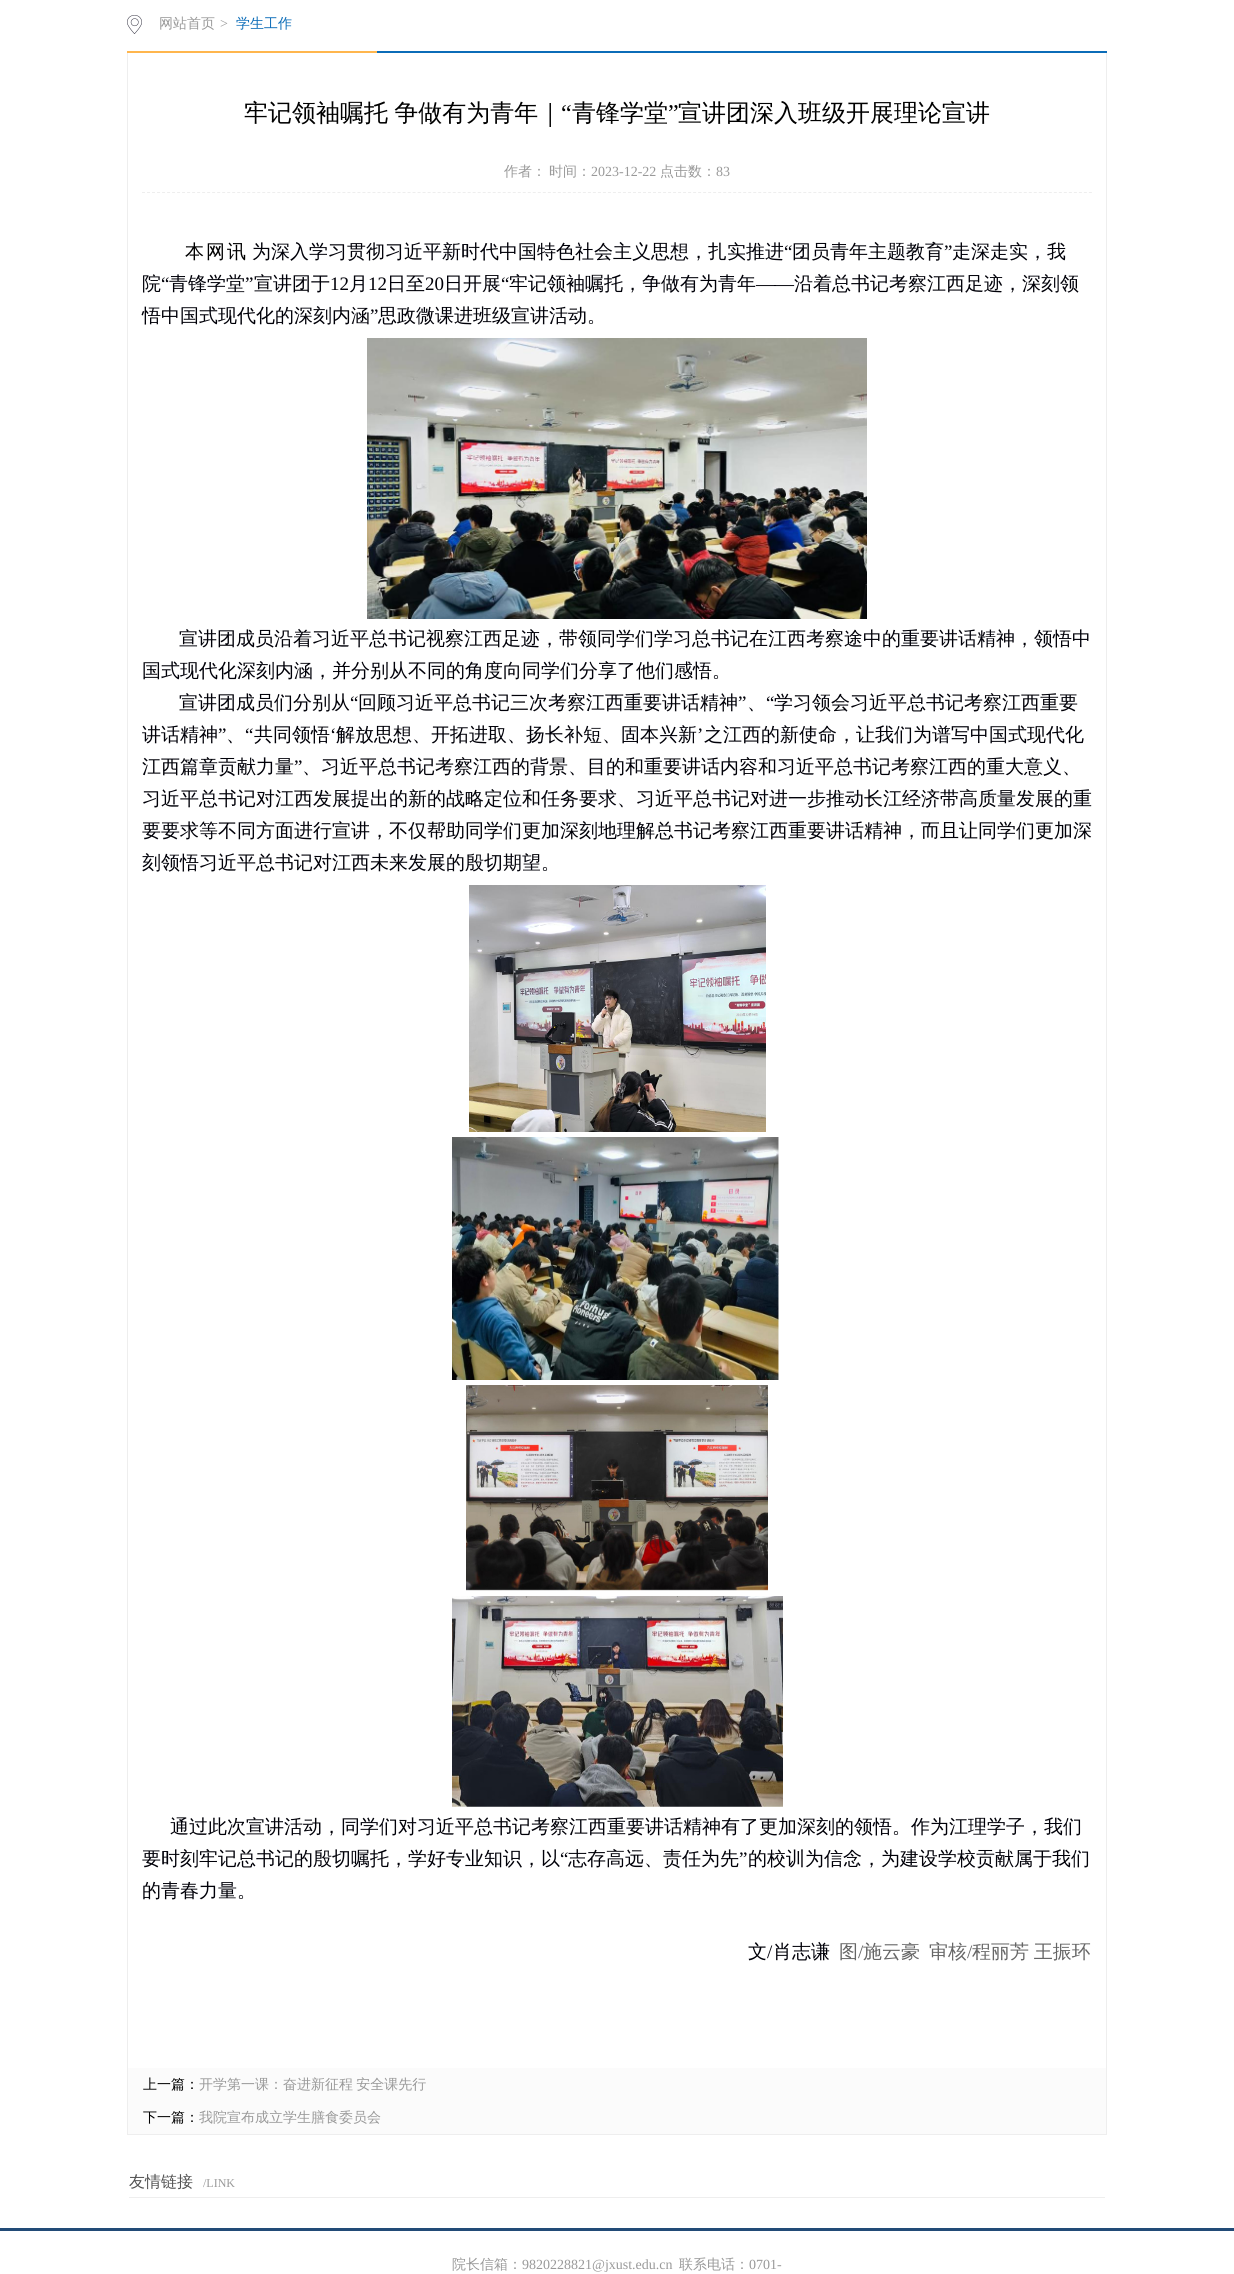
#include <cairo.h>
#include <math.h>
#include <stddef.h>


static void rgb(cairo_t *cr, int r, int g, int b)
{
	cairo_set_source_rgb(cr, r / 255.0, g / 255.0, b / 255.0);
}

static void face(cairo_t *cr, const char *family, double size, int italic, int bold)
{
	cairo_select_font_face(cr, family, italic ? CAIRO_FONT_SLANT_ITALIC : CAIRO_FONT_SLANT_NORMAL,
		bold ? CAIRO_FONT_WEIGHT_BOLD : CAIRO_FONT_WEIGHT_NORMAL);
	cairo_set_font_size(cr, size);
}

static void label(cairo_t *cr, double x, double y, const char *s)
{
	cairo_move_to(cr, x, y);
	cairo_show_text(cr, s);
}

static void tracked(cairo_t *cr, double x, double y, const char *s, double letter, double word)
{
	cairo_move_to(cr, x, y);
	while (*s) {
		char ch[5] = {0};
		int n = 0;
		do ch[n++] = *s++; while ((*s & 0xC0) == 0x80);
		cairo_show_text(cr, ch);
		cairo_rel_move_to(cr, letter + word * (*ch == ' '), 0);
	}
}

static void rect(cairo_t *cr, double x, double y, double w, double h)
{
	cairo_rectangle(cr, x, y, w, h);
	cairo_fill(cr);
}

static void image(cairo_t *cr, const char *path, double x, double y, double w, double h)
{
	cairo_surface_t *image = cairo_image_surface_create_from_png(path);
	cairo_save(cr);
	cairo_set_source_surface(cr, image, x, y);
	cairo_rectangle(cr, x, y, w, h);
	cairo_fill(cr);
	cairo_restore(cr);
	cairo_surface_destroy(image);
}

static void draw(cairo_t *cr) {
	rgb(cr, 255, 255, 255);
	cairo_paint(cr);
	rgb(cr, 11, 108, 184);
	rect(cr, 377, 51, 730, 2);
	rgb(cr, 255, 182, 77);
	rect(cr, 127, 51, 250, 2);
	image(cr, "image0.png", 127, 15, 15, 19);
	face(cr, "WenQuanYi Zen Hei Medium", 14, 0, 0);
	rgb(cr, 153, 153, 153);
	label(cr, 159, 28, "网站首页");
	face(cr, "Liberation Serif", 14, 0, 0);
	label(cr, 220, 28, ">");
	face(cr, "WenQuanYi Zen Hei Medium", 14, 0, 0);
	rgb(cr, 11, 108, 184);
	label(cr, 236, 28, "学生工作");
	rgb(cr, 238, 238, 238);
	rect(cr, 1106, 53, 1, 2082);
	rect(cr, 127, 2134, 980, 1);
	rect(cr, 127, 53, 1, 2082);
	cairo_new_path(cr);
	cairo_move_to(cr, 142, 192.5);
	cairo_line_to(cr, 1092, 192.5);
	cairo_set_line_width(cr, 1);
	cairo_set_dash(cr, (double[]){3, 2.01}, 2, 0);
	cairo_stroke(cr);
	face(cr, "WenQuanYi Zen Hei Medium", 24, 0, 0);
	rgb(cr, 0, 0, 0);
	tracked(cr, 244, 121, "牢记领袖嘱托 争做有为青年｜", 0, -1);
	face(cr, "Liberation Serif", 24, 0, 0);
	label(cr, 561, 121, "“");
	face(cr, "WenQuanYi Zen Hei Medium", 24, 0, 0);
	label(cr, 572, 121, "青锋学堂");
	face(cr, "Liberation Serif", 24, 0, 0);
	label(cr, 668, 121, "”");
	face(cr, "WenQuanYi Zen Hei Medium", 24, 0, 0);
	label(cr, 678, 121, "宣讲团深入班级开展理论宣讲");
	face(cr, "WenQuanYi Zen Hei Medium", 14, 0, 0);
	rgb(cr, 153, 153, 153);
	label(cr, 504, 176, "作者：");
	label(cr, 549, 176, "时间：");
	face(cr, "Liberation Serif", 14, 0, 0);
	label(cr, 591, 176, "2023-12-22");
	face(cr, "WenQuanYi Zen Hei Medium", 14, 0, 0);
	label(cr, 660, 176, "点击数：");
	face(cr, "Liberation Serif", 14, 0, 0);
	label(cr, 716, 176, "83");
	face(cr, "WenQuanYi Zen Hei Medium", 19, 0, 0);
	rgb(cr, 0, 0, 0);
	tracked(cr, 185, 258, "本网讯", 2, 0);
	rgb(cr, 0, 0, 8);
	label(cr, 252, 258, "为深⼊学习贯彻习近平新时代中国特色社会主义思想，扎实推进");
	face(cr, "Liberation Serif", 19, 0, 0);
	label(cr, 784, 258, "“");
	face(cr, "WenQuanYi Zen Hei Medium", 19, 0, 0);
	label(cr, 792, 258, "团员青年主题教育");
	face(cr, "Liberation Serif", 19, 0, 0);
	label(cr, 944, 258, "”");
	face(cr, "WenQuanYi Zen Hei Medium", 19, 0, 0);
	label(cr, 952, 258, "走深走实，我");
	label(cr, 142, 290, "院");
	face(cr, "Liberation Serif", 19, 0, 0);
	label(cr, 161, 290, "“");
	face(cr, "WenQuanYi Zen Hei Medium", 19, 0, 0);
	label(cr, 169, 290, "青锋学堂");
	face(cr, "Liberation Serif", 19, 0, 0);
	label(cr, 245, 290, "”");
	face(cr, "WenQuanYi Zen Hei Medium", 19, 0, 0);
	label(cr, 254, 290, "宣讲团于");
	face(cr, "Liberation Serif", 19, 0, 0);
	label(cr, 330, 290, "12");
	face(cr, "WenQuanYi Zen Hei Medium", 19, 0, 0);
	label(cr, 349, 290, "月");
	face(cr, "Liberation Serif", 19, 0, 0);
	label(cr, 368, 290, "12");
	face(cr, "WenQuanYi Zen Hei Medium", 19, 0, 0);
	label(cr, 387, 290, "日至");
	face(cr, "Liberation Serif", 19, 0, 0);
	label(cr, 425, 290, "20");
	face(cr, "WenQuanYi Zen Hei Medium", 19, 0, 0);
	label(cr, 444, 290, "日开展");
	face(cr, "Liberation Serif", 19, 0, 0);
	label(cr, 501, 290, "“");
	face(cr, "WenQuanYi Zen Hei Medium", 19, 0, 0);
	label(cr, 509, 290, "牢记领袖嘱托，争做有为青年");
	face(cr, "Liberation Serif", 19, 0, 0);
	label(cr, 756, 290, "——");
	face(cr, "WenQuanYi Zen Hei Medium", 19, 0, 0);
	label(cr, 794, 290, "沿着总书记考察江西足迹，深刻领");
	label(cr, 142, 322, "悟中国式现代化的深刻内涵");
	face(cr, "Liberation Serif", 19, 0, 0);
	label(cr, 370, 322, "”");
	face(cr, "WenQuanYi Zen Hei Medium", 19, 0, 0);
	label(cr, 378, 322, "思政微课进班级宣讲活动。");
	image(cr, "image1.png", 367, 338, 500, 281);
	label(cr, 179, 645, "宣讲团成员沿着习近平总书记视察江西足迹，带领同学们学习总书记在江西考察途中的重要讲话精神，领悟中");
	label(cr, 142, 677, "国式现代化深刻内涵，并分别从不同的角度向同学们分享了他们感悟。");
	label(cr, 179, 709, "宣讲团成员们分别从");
	face(cr, "Liberation Serif", 19, 0, 0);
	label(cr, 350, 709, "“");
	face(cr, "WenQuanYi Zen Hei Medium", 19, 0, 0);
	label(cr, 358, 709, "回顾习近平总书记三次考察江西重要讲话精神");
	face(cr, "Liberation Serif", 19, 0, 0);
	label(cr, 738, 709, "”");
	label(cr, 766, 709, "“");
	face(cr, "WenQuanYi Zen Hei Medium", 19, 0, 0);
	label(cr, 774, 709, "学习领会习近平总书记考察江西重要");
	label(cr, 747, 709, "、");
	label(cr, 142, 741, "讲话精神");
	face(cr, "Liberation Serif", 19, 0, 0);
	label(cr, 218, 741, "”");
	label(cr, 245, 741, "“");
	face(cr, "WenQuanYi Zen Hei Medium", 19, 0, 0);
	label(cr, 254, 741, "共同领悟");
	face(cr, "Liberation Serif", 19, 0, 0);
	label(cr, 330, 741, "‘");
	face(cr, "WenQuanYi Zen Hei Medium", 19, 0, 0);
	label(cr, 336, 741, "解放思想、开拓进取、扬长补短、固本兴新");
	face(cr, "Liberation Serif", 19, 0, 0);
	label(cr, 697, 741, "’");
	face(cr, "WenQuanYi Zen Hei Medium", 19, 0, 0);
	label(cr, 704, 741, "之江西的新使命，让我们为谱写中国式现代化");
	label(cr, 226, 741, "、");
	label(cr, 142, 773, "江西篇章贡献力量");
	face(cr, "Liberation Serif", 19, 0, 0);
	label(cr, 294, 773, "”");
	face(cr, "WenQuanYi Zen Hei Medium", 19, 0, 0);
	label(cr, 302, 773, "、习近平总书记考察江西的背景、目的和重要讲话内容和习近平总书记考察江西的重大意义、");
	label(cr, 142, 805, "习近平总书记对江西发展提出的新的战略定位和任务要求、习近平总书记对进一步推动长江经济带高质量发展的重");
	label(cr, 142, 837, "要要求等不同方面进行宣讲，不仅帮助同学们更加深刻地理解总书记考察江西重要讲话精神，而且让同学们更加深");
	label(cr, 142, 869, "刻领悟习近平总书记对江西未来发展的殷切期望。");
	image(cr, "image2.png", 469, 885, 297, 247);
	image(cr, "image3.png", 452, 1137, 327, 243);
	image(cr, "image4.png", 466, 1385, 302, 206);
	image(cr, "image5.png", 452, 1596, 331, 211);
	label(cr, 170, 1833, "通过此次宣讲活动，同学们对习近平总书记考察江西重要讲话精神有了更加深刻的领悟。作为江理学子，我们");
	label(cr, 142, 1865, "要时刻牢记总书记的殷切嘱托，学好专业知识，以");
	face(cr, "Liberation Serif", 19, 0, 0);
	label(cr, 560, 1865, "“");
	face(cr, "WenQuanYi Zen Hei Medium", 19, 0, 0);
	label(cr, 568, 1865, "志存高远、责任为先");
	face(cr, "Liberation Serif", 19, 0, 0);
	label(cr, 739, 1865, "”");
	face(cr, "WenQuanYi Zen Hei Medium", 19, 0, 0);
	label(cr, 748, 1865, "的校训为信念，为建设学校贡献属于我们");
	label(cr, 142, 1897, "的青春力量。");
	label(cr, 748, 1958, "文");
	face(cr, "Liberation Serif", 19, 0, 0);
	label(cr, 767, 1958, "/");
	face(cr, "WenQuanYi Zen Hei Medium", 19, 0, 0);
	label(cr, 773, 1958, "肖志谦");
	rgb(cr, 102, 102, 102);
	label(cr, 839, 1958, "图");
	face(cr, "Liberation Serif", 19, 0, 0);
	label(cr, 858, 1958, "/");
	face(cr, "WenQuanYi Zen Hei Medium", 19, 0, 0);
	label(cr, 863, 1958, "施云豪");
	label(cr, 929, 1958, "审核");
	face(cr, "Liberation Serif", 19, 0, 0);
	label(cr, 967, 1958, "/");
	face(cr, "WenQuanYi Zen Hei Medium", 19, 0, 0);
	tracked(cr, 972, 1958, "程丽芳 王振环", 0, -1);
	rgb(cr, 251, 251, 251);
	rect(cr, 128, 2068, 978, 66);
	face(cr, "WenQuanYi Zen Hei Medium", 14, 0, 0);
	rgb(cr, 0, 0, 0);
	label(cr, 143, 2089, "上一篇：");
	rgb(cr, 153, 153, 153);
	tracked(cr, 199, 2089, "开学第一课：奋进新征程 安全课先行", 0, -1);
	rgb(cr, 0, 0, 0);
	label(cr, 143, 2122, "下一篇：");
	rgb(cr, 153, 153, 153);
	label(cr, 199, 2122, "我院宣布成立学生膳食委员会");
	rgb(cr, 238, 238, 238);
	rect(cr, 129, 2197, 976, 1);
	face(cr, "WenQuanYi Zen Hei Medium", 16, 0, 0);
	rgb(cr, 81, 81, 81);
	label(cr, 129, 2187, "友情链接");
	face(cr, "Liberation Serif", 12, 0, 0);
	rgb(cr, 153, 153, 153);
	label(cr, 203, 2187, "/LINK");
	rgb(cr, 34, 75, 119);
	rect(cr, 0, 2228, 1234, 3);
	face(cr, "WenQuanYi Zen Hei Medium", 14, 0, 0);
	rgb(cr, 153, 153, 153);
	label(cr, 452, 2269, "院长信箱：");
	face(cr, "Liberation Serif", 14, 0, 0);
	label(cr, 522, 2269, "9820228821@jxust.edu.cn");
	face(cr, "WenQuanYi Zen Hei Medium", 14, 0, 0);
	label(cr, 679, 2269, "联系电话：");
	face(cr, "Liberation Serif", 14, 0, 0);
	label(cr, 749, 2269, "0701-");
}

int main(void) {
	cairo_surface_t *surface = cairo_image_surface_create(CAIRO_FORMAT_RGB24, 1234, 2274);
	cairo_t *cr = cairo_create(surface);
	cairo_font_options_t *options = cairo_font_options_create();
	cairo_font_options_set_hint_metrics(options, CAIRO_HINT_METRICS_OFF);
	cairo_font_options_set_hint_style(options, CAIRO_HINT_STYLE_NONE);
	cairo_set_font_options(cr, options);
	cairo_set_miter_limit(cr, 4);
	draw(cr);
	cairo_surface_write_to_png(surface, "render.png");
	cairo_font_options_destroy(options);
	cairo_destroy(cr);
	cairo_surface_destroy(surface);
	return 0;
}
